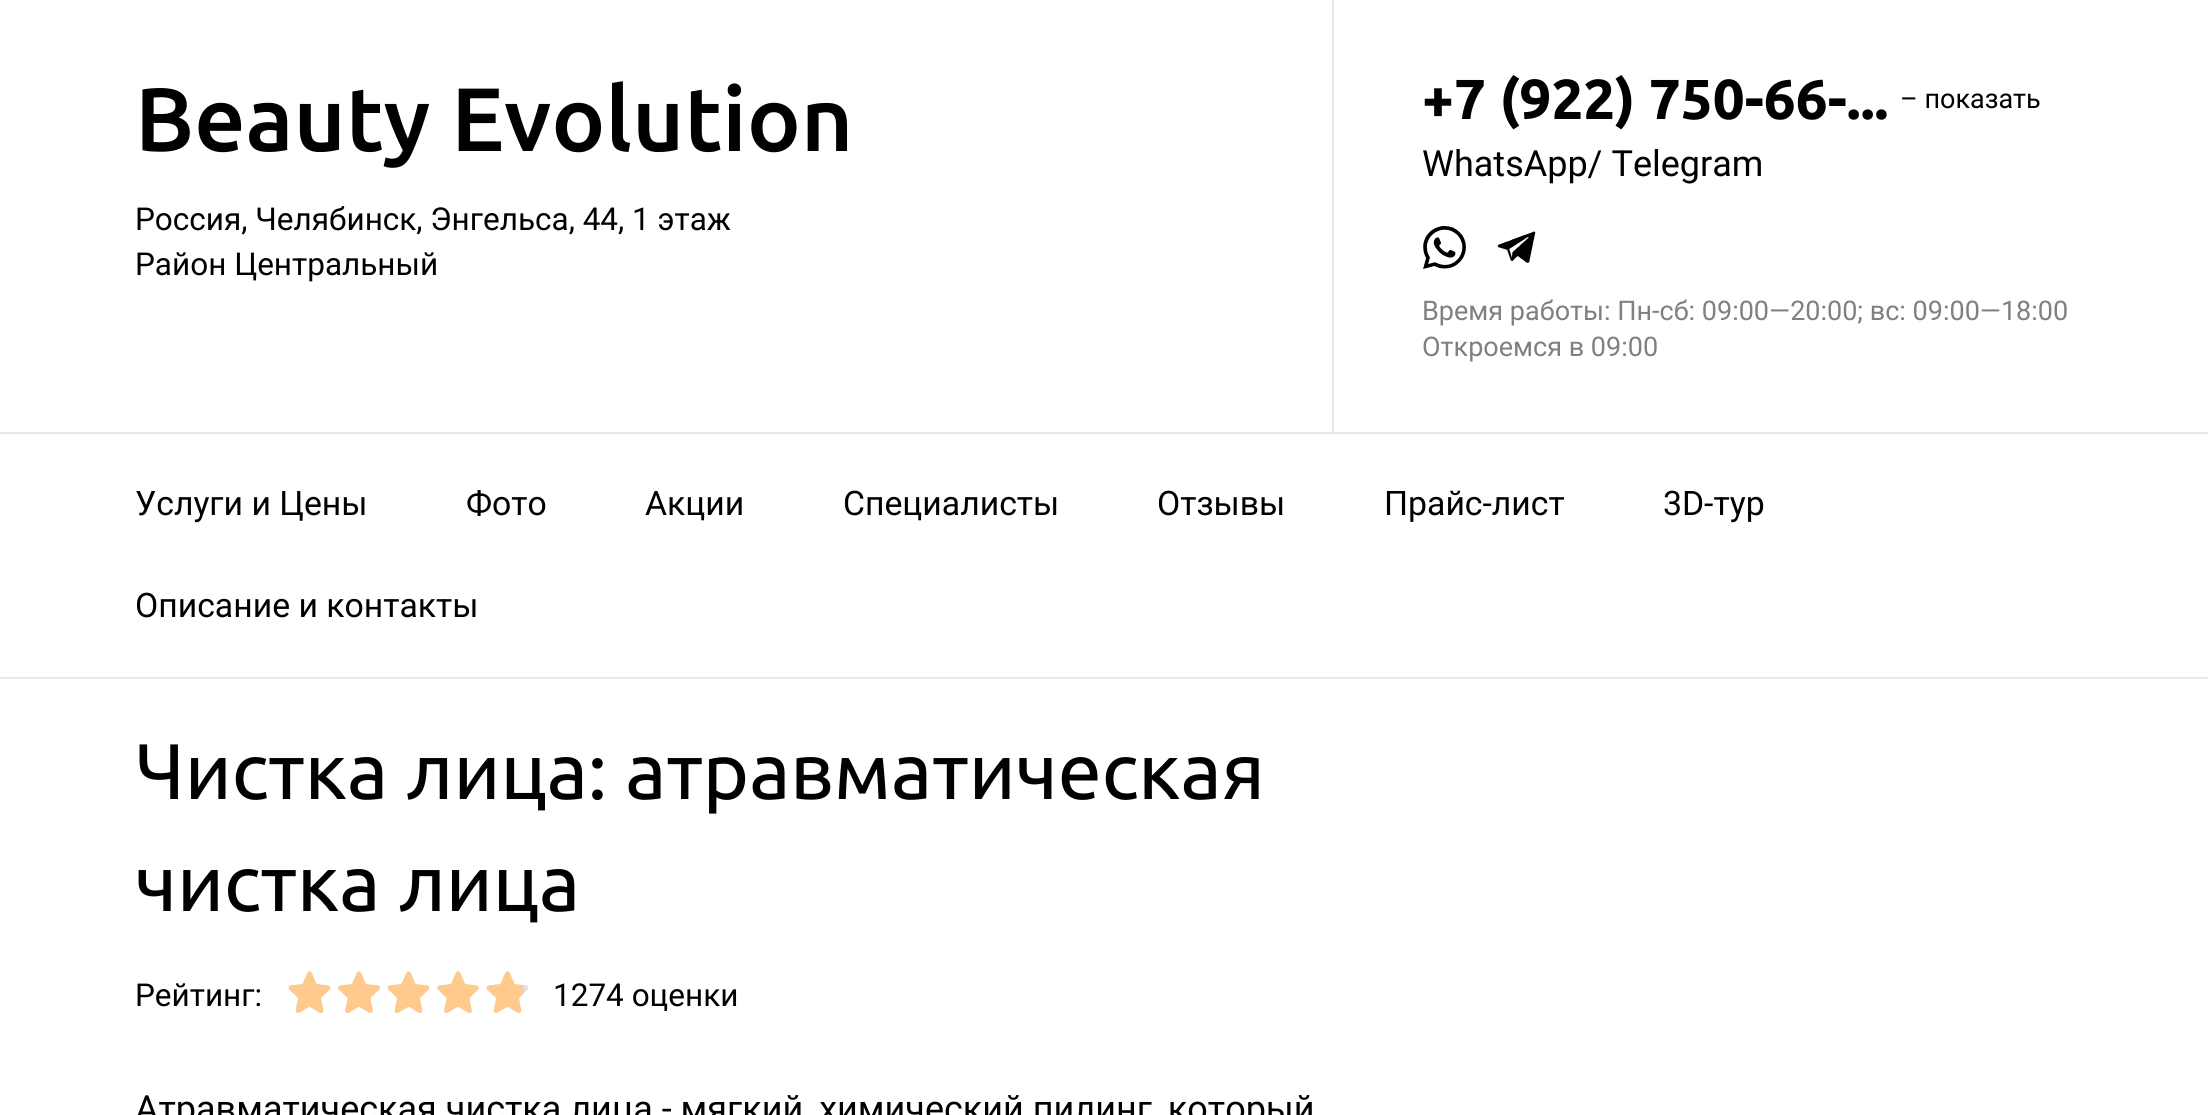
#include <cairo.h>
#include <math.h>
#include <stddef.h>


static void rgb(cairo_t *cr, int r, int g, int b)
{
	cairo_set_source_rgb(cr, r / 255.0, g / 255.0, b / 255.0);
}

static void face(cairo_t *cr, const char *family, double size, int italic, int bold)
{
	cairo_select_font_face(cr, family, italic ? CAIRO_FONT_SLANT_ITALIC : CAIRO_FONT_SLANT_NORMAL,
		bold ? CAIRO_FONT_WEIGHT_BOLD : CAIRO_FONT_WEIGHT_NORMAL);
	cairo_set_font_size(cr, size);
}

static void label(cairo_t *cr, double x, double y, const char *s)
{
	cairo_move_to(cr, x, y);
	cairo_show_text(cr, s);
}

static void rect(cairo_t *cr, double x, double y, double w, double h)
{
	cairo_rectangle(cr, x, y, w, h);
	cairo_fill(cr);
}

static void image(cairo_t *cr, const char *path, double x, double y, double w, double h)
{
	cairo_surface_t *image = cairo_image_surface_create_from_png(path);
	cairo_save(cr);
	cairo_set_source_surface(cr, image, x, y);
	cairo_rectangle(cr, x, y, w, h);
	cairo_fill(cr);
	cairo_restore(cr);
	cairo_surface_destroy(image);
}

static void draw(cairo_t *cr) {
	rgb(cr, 255, 255, 255);
	cairo_paint(cr);
	face(cr, "Ubuntu Medium", 90, 0, 0);
	rgb(cr, 0, 0, 0);
	label(cr, 135, 151, "Beauty Evolution");
	face(cr, "Roboto", 31.5, 0, 0);
	label(cr, 135, 230, "Россия, Челябинск, Энгельса, 44, 1 этаж");
	label(cr, 135, 275, "Район Центральный");
	rgb(cr, 232, 232, 232);
	rect(cr, 1332, 0, 2, 432);
	face(cr, "Ubuntu", 56.25, 0, 1);
	rgb(cr, 0, 0, 0);
	label(cr, 1422, 119, "+7 (922) 750-66-...");
	face(cr, "Roboto", 27, 0, 0);
	label(cr, 1900, 108, "– показать");
	face(cr, "Roboto", 36, 0, 0);
	label(cr, 1422, 176, "WhatsApp/ Telegram");
	image(cr, "image0.png", 1423, 226, 43, 43);
	image(cr, "image1.png", 1497, 231, 39, 32);
	face(cr, "Roboto", 27, 0, 0);
	rgb(cr, 128, 128, 128);
	label(cr, 1422, 320, "Время работы: Пн-сб: 09:00—20:00; вс: 09:00—18:00");
	label(cr, 1422, 356, "Откроемся в 09:00");
	rgb(cr, 232, 232, 232);
	rect(cr, 0, 432, 2208, 2);
	rect(cr, 0, 677, 2208, 2);
	face(cr, "Roboto", 33.75, 0, 0);
	rgb(cr, 0, 0, 0);
	label(cr, 135, 515, "Услуги и Цены");
	label(cr, 466, 515, "Фото");
	label(cr, 645, 515, "Акции");
	label(cr, 843, 515, "Специалисты");
	label(cr, 1157, 515, "Отзывы");
	label(cr, 1384, 515, "Прайс-лист");
	label(cr, 1663, 515, "3D-тур");
	label(cr, 135, 617, "Описание и контакты");
	face(cr, "Ubuntu", 78.75, 0, 0);
	label(cr, 135, 799, "Чистка лица: атравматическая");
	label(cr, 135, 911, "чистка лица");
	face(cr, "Roboto", 31.5, 0, 0);
	label(cr, 135, 1006, "Рейтинг:");
	image(cr, "image2.png", 288, 971, 43, 42);
	image(cr, "image3.png", 288, 971, 43, 42);
	image(cr, "image4.png", 338, 971, 42, 42);
	image(cr, "image5.png", 338, 971, 42, 42);
	image(cr, "image2.png", 387, 971, 43, 42);
	image(cr, "image3.png", 387, 971, 43, 42);
	image(cr, "image4.png", 437, 971, 42, 42);
	image(cr, "image5.png", 437, 971, 42, 42);
	image(cr, "image2.png", 486, 971, 43, 42);
	image(cr, "image6.png", 486, 971, 38, 42);
	label(cr, 553, 1006, "1274 оценки");
	face(cr, "Roboto", 36, 0, 0);
	label(cr, 135, 1121, "Атравматическая чистка лица - мягкий, химический пилинг, который");
}

int main(void) {
	cairo_surface_t *surface = cairo_image_surface_create(CAIRO_FORMAT_RGB24, 2208, 1115);
	cairo_t *cr = cairo_create(surface);
	cairo_font_options_t *options = cairo_font_options_create();
	cairo_font_options_set_hint_metrics(options, CAIRO_HINT_METRICS_OFF);
	cairo_font_options_set_hint_style(options, CAIRO_HINT_STYLE_NONE);
	cairo_set_font_options(cr, options);
	cairo_set_miter_limit(cr, 4);
	draw(cr);
	cairo_surface_write_to_png(surface, "render.png");
	cairo_font_options_destroy(options);
	cairo_destroy(cr);
	cairo_surface_destroy(surface);
	return 0;
}
